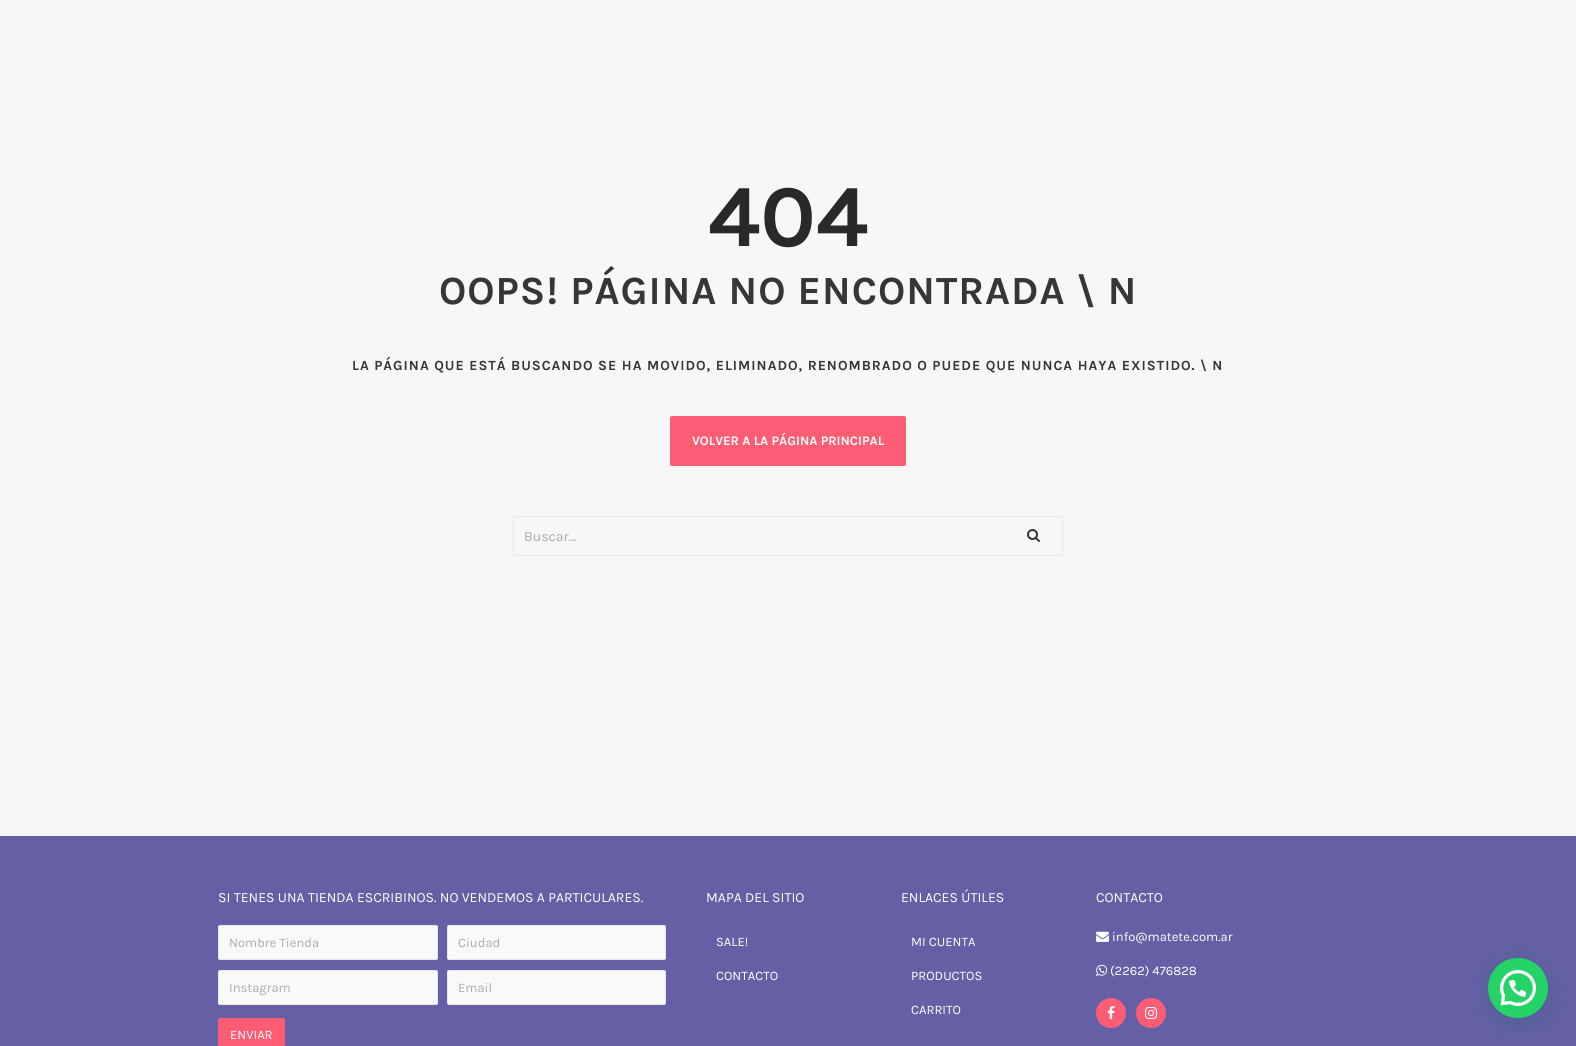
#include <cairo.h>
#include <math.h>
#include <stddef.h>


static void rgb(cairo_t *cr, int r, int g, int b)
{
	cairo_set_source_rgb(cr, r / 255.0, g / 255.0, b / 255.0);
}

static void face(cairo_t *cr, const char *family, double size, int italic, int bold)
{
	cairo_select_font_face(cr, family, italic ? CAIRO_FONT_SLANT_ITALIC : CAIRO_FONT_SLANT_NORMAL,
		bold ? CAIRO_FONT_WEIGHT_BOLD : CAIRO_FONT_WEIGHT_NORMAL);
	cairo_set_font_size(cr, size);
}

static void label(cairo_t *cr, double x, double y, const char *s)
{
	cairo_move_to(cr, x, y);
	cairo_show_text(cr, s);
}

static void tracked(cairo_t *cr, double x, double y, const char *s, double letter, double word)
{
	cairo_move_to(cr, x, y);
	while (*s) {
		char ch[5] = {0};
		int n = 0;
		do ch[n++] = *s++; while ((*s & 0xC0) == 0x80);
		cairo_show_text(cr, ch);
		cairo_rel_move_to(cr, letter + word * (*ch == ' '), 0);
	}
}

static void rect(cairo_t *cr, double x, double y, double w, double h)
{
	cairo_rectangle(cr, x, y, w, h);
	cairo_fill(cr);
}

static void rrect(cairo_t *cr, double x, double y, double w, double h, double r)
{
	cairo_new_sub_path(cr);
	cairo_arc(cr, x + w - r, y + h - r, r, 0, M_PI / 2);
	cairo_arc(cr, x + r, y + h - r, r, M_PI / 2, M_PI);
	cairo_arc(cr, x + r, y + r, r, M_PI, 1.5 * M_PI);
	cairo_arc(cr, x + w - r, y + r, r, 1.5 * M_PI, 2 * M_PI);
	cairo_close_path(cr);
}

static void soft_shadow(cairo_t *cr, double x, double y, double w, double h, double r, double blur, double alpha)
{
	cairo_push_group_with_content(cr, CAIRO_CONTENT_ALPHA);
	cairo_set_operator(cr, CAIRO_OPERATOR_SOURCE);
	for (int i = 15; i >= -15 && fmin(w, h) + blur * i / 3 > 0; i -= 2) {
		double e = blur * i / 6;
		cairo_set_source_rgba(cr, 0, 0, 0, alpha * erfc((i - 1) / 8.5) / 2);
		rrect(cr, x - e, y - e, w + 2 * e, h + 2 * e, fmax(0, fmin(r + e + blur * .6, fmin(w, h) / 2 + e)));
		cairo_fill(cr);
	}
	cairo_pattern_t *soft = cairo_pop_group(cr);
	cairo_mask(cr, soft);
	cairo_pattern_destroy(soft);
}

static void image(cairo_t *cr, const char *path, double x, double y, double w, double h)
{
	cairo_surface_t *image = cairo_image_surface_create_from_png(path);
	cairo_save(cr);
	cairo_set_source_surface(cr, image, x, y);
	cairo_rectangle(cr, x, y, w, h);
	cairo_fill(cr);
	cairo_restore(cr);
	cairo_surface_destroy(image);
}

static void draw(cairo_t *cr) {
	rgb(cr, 247, 247, 247);
	cairo_paint(cr);
	face(cr, "Karla", 88, 0, 1);
	rgb(cr, 41, 41, 41);
	label(cr, 708, 246, "404");
	face(cr, "Karla", 40, 0, 1);
	rgb(cr, 54, 54, 54);
	tracked(cr, 439, 304, "OOPS! PÁGINA NO ENCONTRADA \\ N", 1, 0);
	face(cr, "Karla", 14, 0, 1);
	tracked(cr, 352, 370, "LA PÁGINA QUE ESTÁ BUSCANDO SE HA MOVIDO, ELIMINADO, RENOMBRADO O PUEDE QUE NUNCA HAYA EXISTIDO. \\ N", 1, 0);
	rgb(cr, 252, 93, 117);
	rrect(cr, 671, 417, 234, 48, 1);
	cairo_fill_preserve(cr);
	cairo_stroke(cr);
	face(cr, "Karla", 13, 0, 1);
	rgb(cr, 255, 255, 255);
	label(cr, 692, 445, "VOLVER A LA PÁGINA PRINCIPAL");
	rrect(cr, 513.5, 516.5, 549, 39, 1.5);
	rgb(cr, 232, 232, 232);
	cairo_set_line_width(cr, 1);
	cairo_stroke(cr);
	face(cr, "Karla", 14, 0, 0);
	rgb(cr, 171, 171, 171);
	label(cr, 524, 541, "Buscar…");
	image(cr, "image0.png", 1027, 529, 13, 13);
	rgb(cr, 101, 96, 166);
	rect(cr, 0, 836, 1576, 210);
	rgb(cr, 255, 255, 255);
	label(cr, 218, 902, "SI TENES UNA TIENDA ESCRIBINOS. NO VENDEMOS A PARTICULARES.");
	rgb(cr, 249, 249, 249);
	rrect(cr, 218.5, 925.5, 219, 34, 1.5);
	cairo_fill_preserve(cr);
	rgb(cr, 232, 232, 232);
	cairo_stroke(cr);
	face(cr, "Karla", 13, 0, 0);
	rgb(cr, 171, 171, 171);
	label(cr, 229, 947, "Nombre Tienda");
	rgb(cr, 249, 249, 249);
	rrect(cr, 447.5, 925.5, 218, 34, 1.5);
	cairo_fill_preserve(cr);
	rgb(cr, 232, 232, 232);
	cairo_stroke(cr);
	rgb(cr, 171, 171, 171);
	label(cr, 458, 947, "Ciudad");
	rgb(cr, 249, 249, 249);
	rrect(cr, 218.5, 970.5, 219, 34, 1.5);
	cairo_fill_preserve(cr);
	rgb(cr, 232, 232, 232);
	cairo_stroke(cr);
	rgb(cr, 171, 171, 171);
	label(cr, 229, 992, "Instagram");
	rgb(cr, 249, 249, 249);
	rrect(cr, 447.5, 970.5, 218, 34, 1.5);
	cairo_fill_preserve(cr);
	rgb(cr, 232, 232, 232);
	cairo_stroke(cr);
	rgb(cr, 171, 171, 171);
	label(cr, 458, 992, "Email");
	rgb(cr, 252, 93, 117);
	rrect(cr, 219, 1019, 65, 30, 1);
	cairo_fill_preserve(cr);
	cairo_set_line_width(cr, 2);
	cairo_stroke(cr);
	rgb(cr, 255, 255, 255);
	label(cr, 230, 1039, "ENVIAR");
	face(cr, "Karla", 14, 0, 0);
	label(cr, 706, 902, "MAPA DEL SITIO");
	face(cr, "Karla", 13, 0, 0);
	label(cr, 716, 946, "SALE!");
	label(cr, 716, 980, "CONTACTO");
	face(cr, "Karla", 14, 0, 0);
	label(cr, 901, 902, "ENLACES ÚTILES");
	face(cr, "Karla", 13, 0, 0);
	label(cr, 911, 946, "MI CUENTA");
	label(cr, 911, 980, "PRODUCTOS");
	label(cr, 911, 1014, "CARRITO");
	face(cr, "Karla", 14, 0, 0);
	label(cr, 1096, 902, "CONTACTO");
	image(cr, "image1.png", 1096, 931, 13, 11);
	face(cr, "Karla", 13, 0, 0);
	label(cr, 1112, 941, "info@matete.com.ar");
	image(cr, "image2.png", 1096, 964, 12, 12);
	label(cr, 1110, 975, "(2262) 476828");
	rgb(cr, 252, 93, 117);
	cairo_new_path(cr);
	cairo_arc(cr, 1111, 1013, 14.5, 0, 2 * M_PI);
	cairo_fill_preserve(cr);
	cairo_set_line_width(cr, 1);
	cairo_stroke(cr);
	image(cr, "image3.png", 1107, 1006, 8, 13);
	cairo_arc(cr, 1151, 1013, 14.5, 0, 2 * M_PI);
	cairo_fill_preserve(cr);
	cairo_stroke(cr);
	image(cr, "image4.png", 1145, 1007, 12, 12);
	rgb(cr, 7, 94, 84);
	soft_shadow(cr, 1489, 964, 60, 60, 30, 12, 0.24);
	rgb(cr, 37, 211, 102);
	cairo_arc(cr, 1518, 988, 30, 0, 2 * M_PI);
	cairo_fill(cr);
	image(cr, "image5.png", 1500, 970, 36, 36);
}

int main(void) {
	cairo_surface_t *surface = cairo_image_surface_create(CAIRO_FORMAT_RGB24, 1576, 1046);
	cairo_t *cr = cairo_create(surface);
	cairo_font_options_t *options = cairo_font_options_create();
	cairo_font_options_set_hint_metrics(options, CAIRO_HINT_METRICS_OFF);
	cairo_font_options_set_hint_style(options, CAIRO_HINT_STYLE_NONE);
	cairo_set_font_options(cr, options);
	cairo_set_miter_limit(cr, 4);
	draw(cr);
	cairo_surface_write_to_png(surface, "render.png");
	cairo_font_options_destroy(options);
	cairo_destroy(cr);
	cairo_surface_destroy(surface);
	return 0;
}
